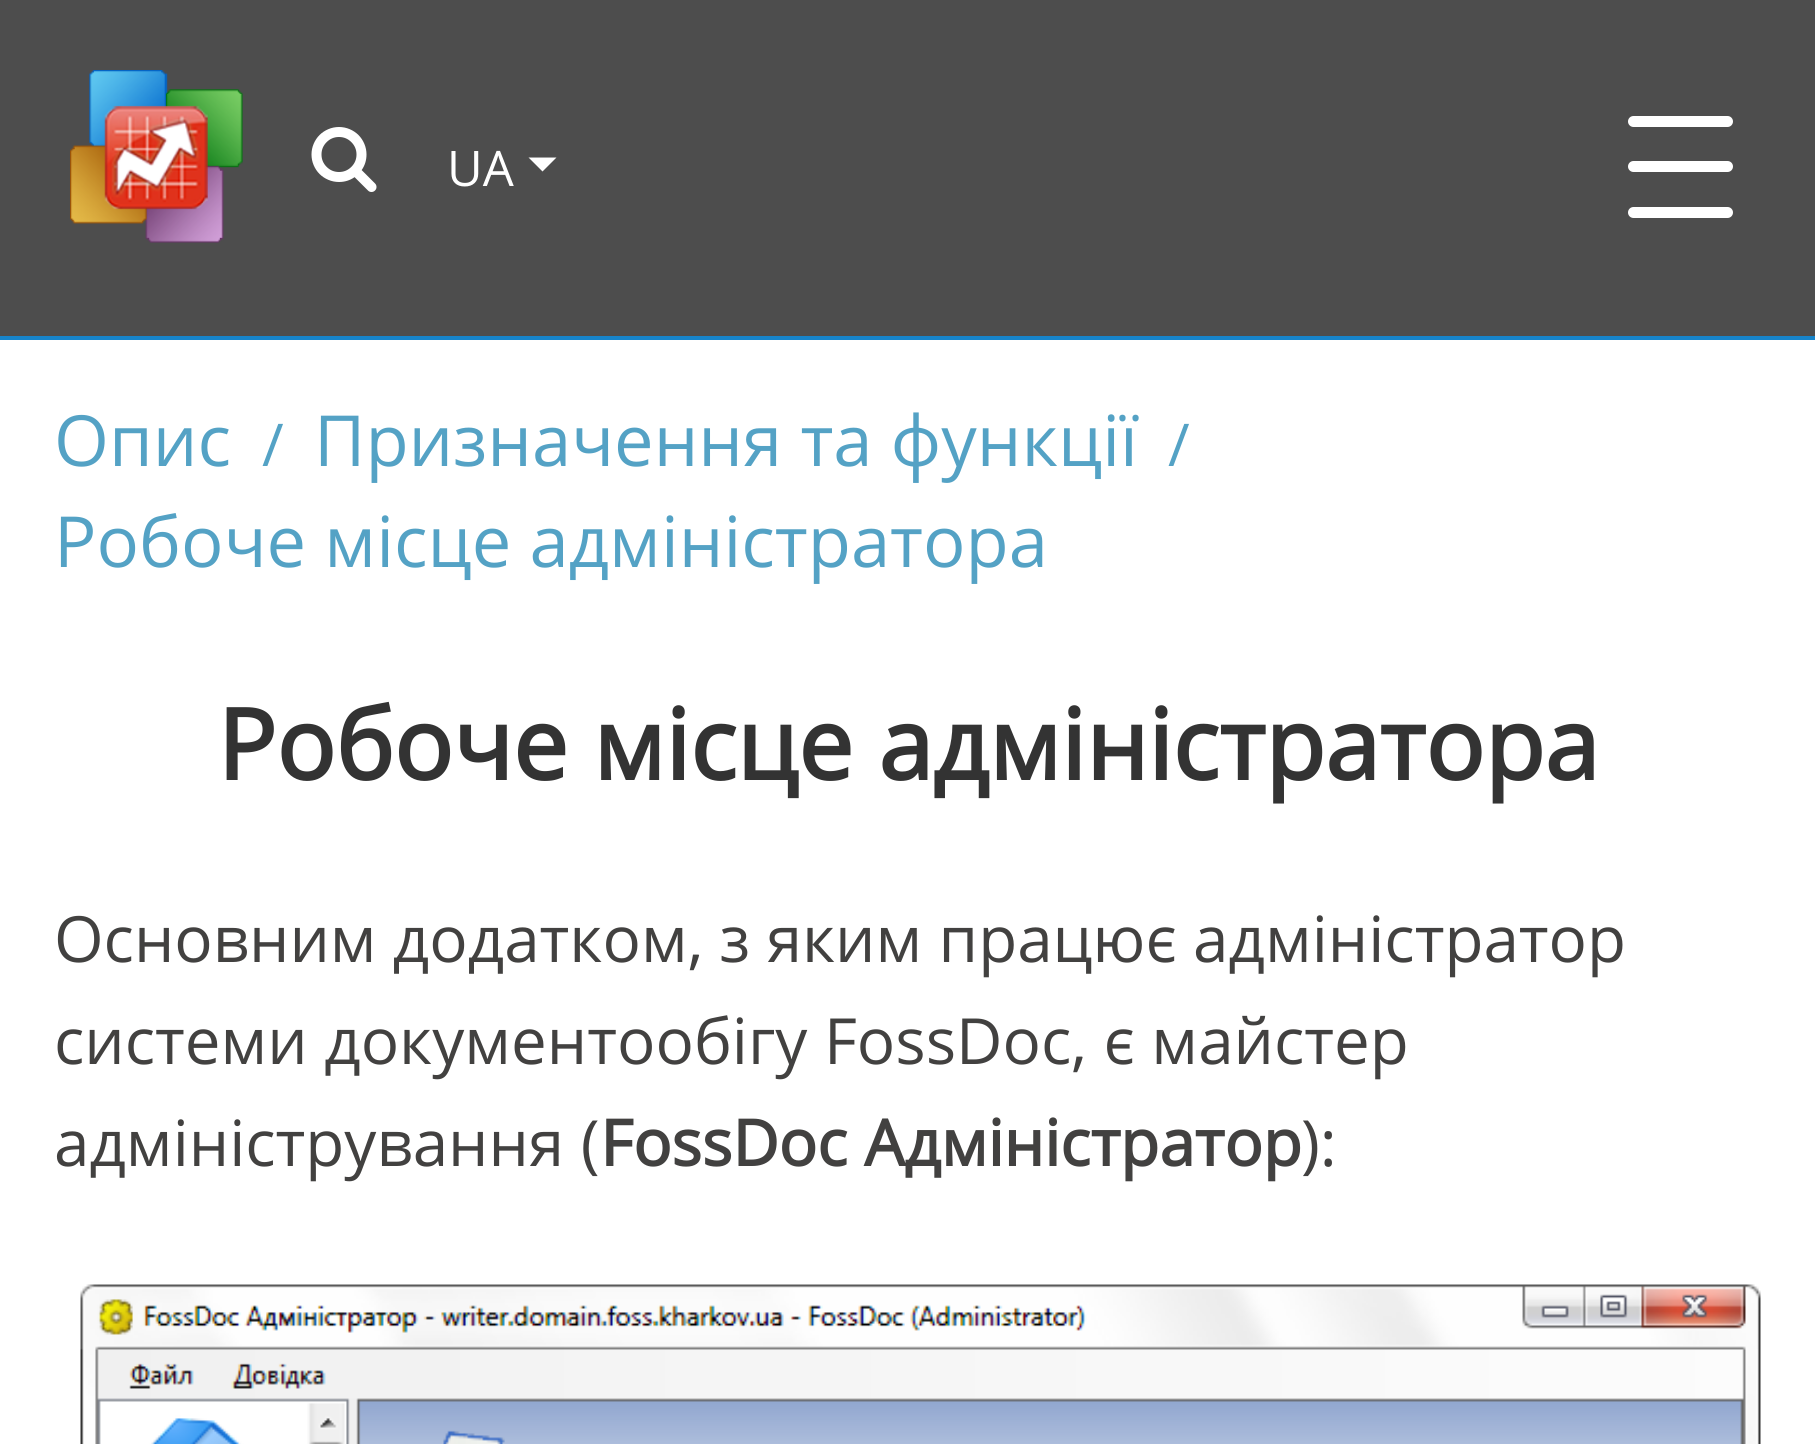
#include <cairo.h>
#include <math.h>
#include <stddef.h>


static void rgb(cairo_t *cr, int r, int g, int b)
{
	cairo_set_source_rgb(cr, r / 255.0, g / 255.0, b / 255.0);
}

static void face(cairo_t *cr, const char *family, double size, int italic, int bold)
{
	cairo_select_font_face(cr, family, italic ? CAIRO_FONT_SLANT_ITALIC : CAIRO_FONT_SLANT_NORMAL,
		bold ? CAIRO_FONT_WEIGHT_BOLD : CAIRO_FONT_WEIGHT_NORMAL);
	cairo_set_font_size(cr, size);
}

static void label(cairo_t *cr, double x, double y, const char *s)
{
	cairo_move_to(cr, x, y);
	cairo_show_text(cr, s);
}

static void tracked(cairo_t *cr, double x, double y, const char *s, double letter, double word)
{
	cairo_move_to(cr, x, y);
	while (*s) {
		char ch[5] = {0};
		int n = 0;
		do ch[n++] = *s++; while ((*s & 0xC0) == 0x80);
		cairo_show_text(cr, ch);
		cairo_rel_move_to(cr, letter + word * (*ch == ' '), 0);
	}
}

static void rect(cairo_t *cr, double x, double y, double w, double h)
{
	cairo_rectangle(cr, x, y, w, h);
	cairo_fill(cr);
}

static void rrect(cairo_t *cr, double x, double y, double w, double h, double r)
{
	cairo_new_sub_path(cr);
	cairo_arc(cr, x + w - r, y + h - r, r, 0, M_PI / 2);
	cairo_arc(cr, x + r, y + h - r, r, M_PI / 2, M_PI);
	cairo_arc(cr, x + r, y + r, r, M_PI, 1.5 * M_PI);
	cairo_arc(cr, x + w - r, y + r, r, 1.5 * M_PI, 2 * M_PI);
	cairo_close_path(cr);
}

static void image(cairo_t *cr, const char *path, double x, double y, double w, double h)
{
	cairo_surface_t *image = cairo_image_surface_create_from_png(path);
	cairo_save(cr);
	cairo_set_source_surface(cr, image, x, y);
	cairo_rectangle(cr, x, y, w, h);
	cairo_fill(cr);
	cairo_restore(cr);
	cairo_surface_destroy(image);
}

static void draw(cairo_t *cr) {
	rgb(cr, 255, 255, 255);
	cairo_paint(cr);
	rgb(cr, 77, 77, 77);
	rect(cr, 0, 0, 1815, 336);
	rgb(cr, 23, 132, 202);
	rect(cr, 0, 336, 1815, 4);
	image(cr, "image0.png", 70, 70, 173, 173);
	image(cr, "image1.png", 311, 127, 66, 65);
	face(cr, "Open Sans", 49, 0, 0);
	rgb(cr, 255, 255, 255);
	label(cr, 447, 186, "UA");
	cairo_new_path(cr);
	cairo_move_to(cr, 528.5, 157.5);
	cairo_line_to(cr, 556.5, 157.5);
	cairo_line_to(cr, 542.5, 171.5);
	cairo_close_path(cr);
	cairo_fill(cr);
	rrect(cr, 1628, 161, 105, 11, 5.5);
	cairo_fill(cr);
	rrect(cr, 1628, 116, 105, 11, 5.5);
	cairo_fill(cr);
	rrect(cr, 1628, 207, 105, 11, 5.5);
	cairo_fill(cr);
	face(cr, "Open Sans", 70.5, 0, 0);
	rgb(cr, 84, 162, 197);
	label(cr, 54, 466, "Опис");
	face(cr, "Open Sans", 59, 0, 0);
	label(cr, 262, 466, "/");
	face(cr, "Open Sans", 70.5, 0, 0);
	label(cr, 314, 466, "Призначення та функції");
	face(cr, "Open Sans", 59, 0, 0);
	label(cr, 1168, 466, "/");
	face(cr, "Open Sans", 70.5, 0, 0);
	label(cr, 54, 567, "Робоче місце адміністратора");
	face(cr, "Open Sans", 98, 0, 1);
	rgb(cr, 51, 51, 51);
	label(cr, 217, 780, "Робоче місце адміністратора");
	face(cr, "Open Sans", 63.7, 0, 0);
	rgb(cr, 66, 65, 64);
	tracked(cr, 54, 962, "Основним додатком, з яким працює адміністратор", 0, -0.25);
	label(cr, 54, 1064, "системи документообігу FossDoc, є майстер");
	label(cr, 54, 1166, "адміністрування (");
	face(cr, "Open Sans", 63.7, 0, 1);
	label(cr, 600, 1166, "FossDoc Адміністратор");
	face(cr, "Open Sans", 63.7, 0, 0);
	label(cr, 1301, 1166, "):");
	image(cr, "image2.png", 80, 1284, 1681, 160);
}

int main(void) {
	cairo_surface_t *surface = cairo_image_surface_create(CAIRO_FORMAT_RGB24, 1815, 1444);
	cairo_t *cr = cairo_create(surface);
	cairo_font_options_t *options = cairo_font_options_create();
	cairo_font_options_set_hint_metrics(options, CAIRO_HINT_METRICS_OFF);
	cairo_font_options_set_hint_style(options, CAIRO_HINT_STYLE_NONE);
	cairo_set_font_options(cr, options);
	cairo_set_miter_limit(cr, 4);
	draw(cr);
	cairo_surface_write_to_png(surface, "render.png");
	cairo_font_options_destroy(options);
	cairo_destroy(cr);
	cairo_surface_destroy(surface);
	return 0;
}
